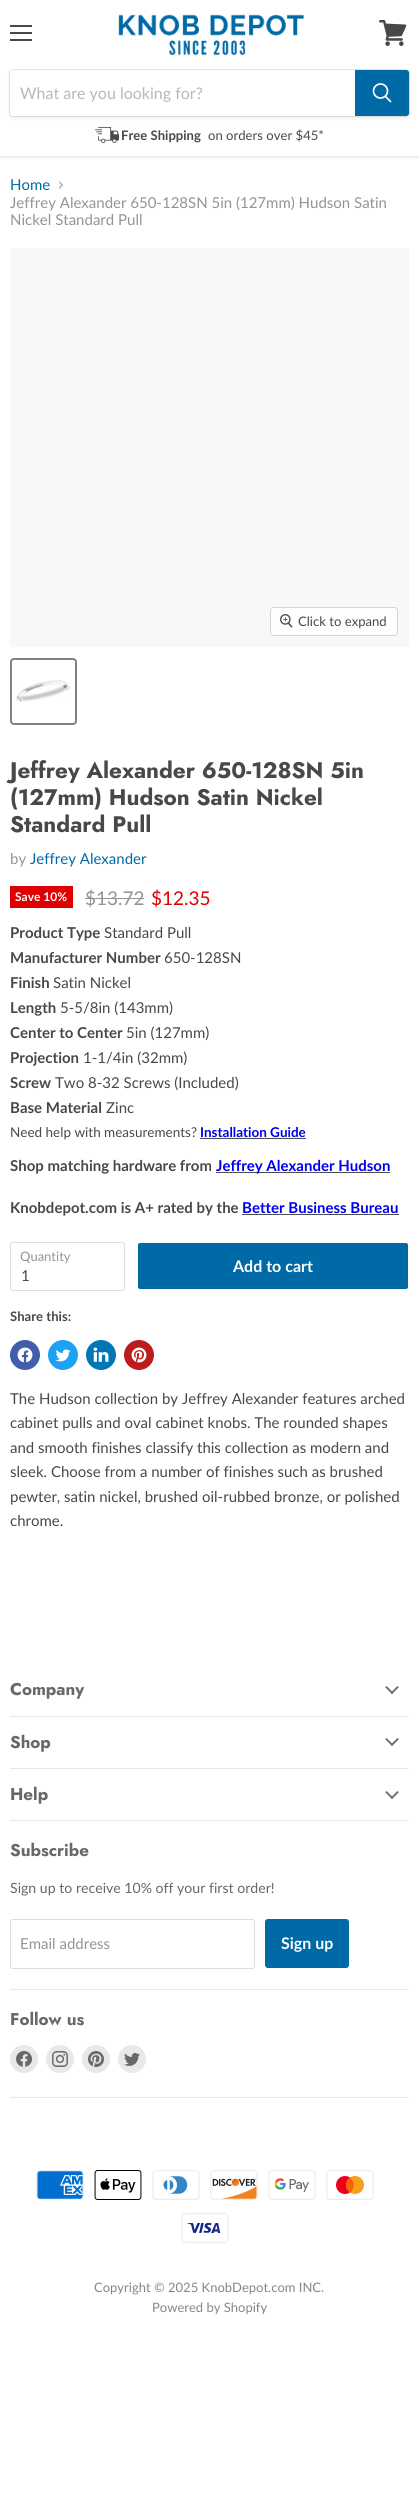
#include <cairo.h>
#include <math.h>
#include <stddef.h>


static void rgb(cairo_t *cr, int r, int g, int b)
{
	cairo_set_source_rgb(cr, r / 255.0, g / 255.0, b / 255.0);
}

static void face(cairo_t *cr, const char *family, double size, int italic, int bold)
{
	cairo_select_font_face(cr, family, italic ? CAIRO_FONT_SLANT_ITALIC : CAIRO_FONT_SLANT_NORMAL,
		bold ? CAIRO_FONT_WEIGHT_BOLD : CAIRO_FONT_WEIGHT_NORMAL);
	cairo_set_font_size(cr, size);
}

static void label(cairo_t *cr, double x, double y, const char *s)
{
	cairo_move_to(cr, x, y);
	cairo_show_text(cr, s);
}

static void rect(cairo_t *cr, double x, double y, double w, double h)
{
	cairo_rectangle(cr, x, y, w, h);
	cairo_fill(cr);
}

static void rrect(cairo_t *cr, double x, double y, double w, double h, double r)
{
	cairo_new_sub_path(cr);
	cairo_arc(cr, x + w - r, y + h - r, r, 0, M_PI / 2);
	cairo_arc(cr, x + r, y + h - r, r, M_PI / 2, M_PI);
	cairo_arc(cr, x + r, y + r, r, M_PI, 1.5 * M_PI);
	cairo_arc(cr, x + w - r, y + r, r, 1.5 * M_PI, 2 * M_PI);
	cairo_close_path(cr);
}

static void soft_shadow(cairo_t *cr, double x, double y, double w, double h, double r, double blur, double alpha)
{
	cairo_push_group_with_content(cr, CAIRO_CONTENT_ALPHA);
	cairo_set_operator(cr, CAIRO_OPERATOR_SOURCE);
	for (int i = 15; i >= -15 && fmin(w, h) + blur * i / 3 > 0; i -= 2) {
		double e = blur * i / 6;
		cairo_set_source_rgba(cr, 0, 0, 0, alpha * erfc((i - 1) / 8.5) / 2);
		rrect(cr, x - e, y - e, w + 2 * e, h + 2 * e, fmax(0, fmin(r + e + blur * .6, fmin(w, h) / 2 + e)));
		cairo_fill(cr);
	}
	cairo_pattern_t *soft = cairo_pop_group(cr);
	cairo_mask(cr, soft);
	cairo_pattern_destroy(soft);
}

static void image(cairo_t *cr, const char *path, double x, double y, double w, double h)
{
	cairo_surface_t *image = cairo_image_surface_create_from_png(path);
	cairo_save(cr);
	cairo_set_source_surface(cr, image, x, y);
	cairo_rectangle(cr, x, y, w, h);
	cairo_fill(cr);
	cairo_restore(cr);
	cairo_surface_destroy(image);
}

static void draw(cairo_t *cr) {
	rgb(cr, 255, 255, 255);
	cairo_paint(cr);
	cairo_save(cr);
	cairo_rectangle(cr, 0, 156, 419, 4);
	cairo_clip(cr);
	rgb(cr, 128, 128, 128);
	soft_shadow(cr, 0, 1, 419, 156, 0, 2, 0.25);
	cairo_restore(cr);
	rgb(cr, 72, 72, 72);
	rect(cr, 10, 25, 22, 2);
	rect(cr, 10, 32, 22, 2);
	rect(cr, 10, 39, 22, 2);
	image(cr, "image0.png", 379, 20, 28, 26);
	image(cr, "image1.png", 118, 14, 186, 42);
	rgb(cr, 128, 128, 128);
	soft_shadow(cr, 9, 71, 401, 48, 4, 1.5, 0.11);
	rrect(cr, 9.5, 69.5, 400, 47, 3.5);
	cairo_set_source_rgba(cr, 0.502, 0.502, 0.502, 0.2);
	cairo_set_line_width(cr, 1);
	cairo_stroke(cr);
	rgb(cr, 255, 255, 255);
	cairo_new_path(cr);
	cairo_move_to(cr, 13, 70);
	cairo_line_to(cr, 355, 70);
	cairo_line_to(cr, 355, 116);
	cairo_line_to(cr, 13, 116);
	cairo_curve_to(cr, 11.5, 116, 10, 114.5, 10, 113);
	cairo_line_to(cr, 10, 73);
	cairo_curve_to(cr, 10, 71.5, 11.5, 70, 13, 70);
	cairo_close_path(cr);
	cairo_fill(cr);
	face(cr, "Lato", 16, 0, 0);
	rgb(cr, 184, 184, 184);
	label(cr, 20, 99, "What are you looking for?");
	rgb(cr, 0, 106, 167);
	cairo_new_path(cr);
	cairo_move_to(cr, 355.5, 70.5);
	cairo_line_to(cr, 406, 70.5);
	cairo_curve_to(cr, 407.5, 70.5, 408.5, 71.5, 408.5, 73);
	cairo_line_to(cr, 408.5, 113);
	cairo_curve_to(cr, 408.5, 114.5, 407.5, 115.5, 406, 115.5);
	cairo_line_to(cr, 355.5, 115.5);
	cairo_close_path(cr);
	cairo_fill_preserve(cr);
	cairo_stroke(cr);
	cairo_new_path(cr);
	cairo_move_to(cr, 390.5, 101.5);
	cairo_line_to(cr, 385.5, 96.5);
	rgb(cr, 255, 255, 255);
	cairo_set_line_width(cr, 1.7);
	cairo_set_line_cap(cr, CAIRO_LINE_CAP_ROUND);
	cairo_stroke(cr);
	cairo_arc(cr, 380.5, 91, 7, 0, 2 * M_PI);
	cairo_set_line_cap(cr, CAIRO_LINE_CAP_BUTT);
	cairo_stroke(cr);
	image(cr, "image2.png", 95, 127, 24, 16);
	face(cr, "Lato", 13.1, 0, 1);
	rgb(cr, 72, 72, 72);
	label(cr, 121, 140, "Free Shipping");
	face(cr, "Lato", 13.1, 0, 0);
	label(cr, 208, 140, "on orders over $45*");
	face(cr, "Lato", 15, 0, 0);
	rgb(cr, 0, 106, 167);
	label(cr, 10, 190, "Home");
	image(cr, "image3.png", 59, 181, 4, 8);
	rgb(cr, 148, 148, 148);
	label(cr, 10, 208, "Jeffrey Alexander 650-128SN 5in (127mm) Hudson Satin");
	label(cr, 10, 225, "Nickel Standard Pull");
	rgb(cr, 248, 248, 248);
	rect(cr, 10, 248, 399, 399);
	rrect(cr, 270.5, 607.5, 127, 28, 3.5);
	rgb(cr, 211, 211, 211);
	cairo_set_line_width(cr, 1);
	cairo_stroke(cr);
	cairo_set_source_rgba(cr, 1, 1, 1, 0.9);
	rrect(cr, 271, 608, 126, 27, 3);
	cairo_fill(cr);
	image(cr, "image4.png", 280, 614, 13, 14);
	face(cr, "Lato", 13.1, 0, 0);
	rgb(cr, 72, 72, 72);
	label(cr, 298, 626, "Click to expand");
	rrect(cr, 11, 659, 65, 65, 3);
	rgb(cr, 129, 129, 129);
	cairo_set_line_width(cr, 2);
	cairo_stroke(cr);
	image(cr, "image5.png", 16, 680, 55, 22);
	face(cr, "Jost", 22.5, 0, 1);
	rgb(cr, 72, 72, 72);
	label(cr, 10, 778, "Jeffrey Alexander 650-128SN 5in");
	label(cr, 10, 805, "(127mm) Hudson Satin Nickel");
	label(cr, 10, 832, "Standard Pull");
	face(cr, "Lato", 15, 0, 0);
	rgb(cr, 148, 148, 148);
	label(cr, 10, 864, "by");
	rgb(cr, 0, 106, 167);
	label(cr, 30, 864, "Jeffrey Alexander");
	rgb(cr, 222, 1, 1);
	rect(cr, 10, 886, 63, 22);
	face(cr, "Lato", 12, 0, 1);
	rgb(cr, 255, 255, 255);
	label(cr, 15, 901, "Save 10%");
	face(cr, "Lato", 19, 0, 0);
	rgb(cr, 148, 148, 148);
	label(cr, 85, 905, "$13.72");
	rect(cr, 85, 898, 59, 1);
	rgb(cr, 222, 1, 1);
	label(cr, 151, 905, "$12.35");
	face(cr, "Lato", 15, 0, 1);
	rgb(cr, 72, 72, 72);
	label(cr, 10, 938, "Product Type");
	face(cr, "Lato", 15, 0, 0);
	label(cr, 104, 938, "Standard Pull");
	face(cr, "Lato", 15, 0, 1);
	label(cr, 10, 963, "Manufacturer Number");
	face(cr, "Lato", 15, 0, 0);
	label(cr, 164, 963, "650-128SN");
	face(cr, "Lato", 15, 0, 1);
	label(cr, 10, 988, "Finish");
	face(cr, "Lato", 15, 0, 0);
	label(cr, 53, 988, "Satin Nickel");
	face(cr, "Lato", 15, 0, 1);
	label(cr, 10, 1013, "Length");
	face(cr, "Lato", 15, 0, 0);
	label(cr, 60, 1013, "5-5/8in (143mm)");
	face(cr, "Lato", 15, 0, 1);
	label(cr, 10, 1038, "Center to Center");
	face(cr, "Lato", 15, 0, 0);
	label(cr, 126, 1038, "5in (127mm)");
	face(cr, "Lato", 15, 0, 1);
	label(cr, 10, 1063, "Projection");
	face(cr, "Lato", 15, 0, 0);
	label(cr, 83, 1063, "1-1/4in (32mm)");
	face(cr, "Lato", 15, 0, 1);
	label(cr, 10, 1088, "Screw");
	face(cr, "Lato", 15, 0, 0);
	label(cr, 55, 1088, "Two 8-32 Screws (Included)");
	face(cr, "Lato", 15, 0, 1);
	label(cr, 10, 1113, "Base Material");
	face(cr, "Lato", 15, 0, 0);
	label(cr, 106, 1113, "Zinc");
	face(cr, "Lato", 13.5, 0, 0);
	label(cr, 10, 1137, "Need help with measurements?");
	face(cr, "Lato", 13.5, 0, 1);
	rgb(cr, 0, 0, 238);
	label(cr, 200, 1137, "Installation Guide");
	rgb(cr, 77, 77, 77);
	rect(cr, 200, 1138, 106, 1);
	face(cr, "Lato", 15, 0, 1);
	rgb(cr, 72, 72, 72);
	label(cr, 10, 1171, "Shop matching hardware from");
	rgb(cr, 77, 77, 77);
	rect(cr, 216, 1172, 174, 1);
	rgb(cr, 0, 0, 238);
	label(cr, 216, 1171, "Jeffrey Alexander Hudson");
	rgb(cr, 72, 72, 72);
	label(cr, 10, 1213, "Knobdepot.com is A+ rated by the");
	rgb(cr, 0, 0, 238);
	label(cr, 242, 1213, "Better Business Bureau");
	rgb(cr, 77, 77, 77);
	rect(cr, 242, 1214, 157, 1);
	rrect(cr, 10.5, 1242.5, 114, 48, 2.5);
	rgb(cr, 221, 221, 221);
	cairo_set_line_width(cr, 1);
	cairo_stroke(cr);
	face(cr, "Lato", 13, 0, 0);
	rgb(cr, 148, 148, 148);
	label(cr, 20, 1261, "Quantity");
	face(cr, "Lato", 15, 0, 0);
	rgb(cr, 72, 72, 72);
	label(cr, 21, 1281, "1");
	rgb(cr, 0, 106, 167);
	rrect(cr, 137.5, 1242.5, 271, 47, 2.5);
	cairo_fill_preserve(cr);
	rgb(cr, 255, 255, 255);
	cairo_stroke(cr);
	face(cr, "Lato", 16, 0, 1);
	label(cr, 233, 1272, "Add to cart");
	face(cr, "Lato", 13.1, 0, 1);
	rgb(cr, 72, 72, 72);
	label(cr, 10, 1321, "Share this:");
	rgb(cr, 66, 93, 171);
	cairo_new_path(cr);
	cairo_arc(cr, 25, 1355, 15, 0, 2 * M_PI);
	cairo_fill(cr);
	image(cr, "image6.png", 17, 1347, 16, 16);
	rgb(cr, 29, 161, 242);
	cairo_arc(cr, 63, 1355, 15, 0, 2 * M_PI);
	cairo_fill(cr);
	image(cr, "image7.png", 55, 1349, 16, 13);
	rgb(cr, 0, 119, 181);
	cairo_arc(cr, 101, 1355, 15, 0, 2 * M_PI);
	cairo_fill(cr);
	image(cr, "image8.png", 93, 1347, 16, 15);
	rgb(cr, 189, 28, 28);
	cairo_arc(cr, 139, 1355, 15, 0, 2 * M_PI);
	cairo_fill(cr);
	image(cr, "image9.png", 131, 1347, 16, 16);
	face(cr, "Lato", 15, 0, 0);
	rgb(cr, 72, 72, 72);
	label(cr, 10, 1404, "The Hudson collection by Jeffrey Alexander features arched");
	label(cr, 10, 1428, "cabinet pulls and oval cabinet knobs. The rounded shapes");
	label(cr, 10, 1453, "and smooth finishes classify this collection as modern and");
	label(cr, 10, 1477, "sleek. Choose from a number of finishes such as brushed");
	label(cr, 10, 1502, "pewter, satin nickel, brushed oil-rubbed bronze, or polished");
	label(cr, 10, 1526, "chrome.");
	rgb(cr, 232, 232, 232);
	rect(cr, 10, 1716, 399, 1);
	face(cr, "Jost", 17, 0, 1);
	rgb(cr, 104, 104, 104);
	label(cr, 10, 1695, "Company");
	image(cr, "image10.png", 385, 1686, 14, 8);
	rgb(cr, 232, 232, 232);
	rect(cr, 10, 1768, 399, 1);
	rgb(cr, 104, 104, 104);
	label(cr, 10, 1748, "Shop");
	image(cr, "image10.png", 385, 1738, 14, 8);
	rgb(cr, 232, 232, 232);
	rect(cr, 10, 1820, 399, 1);
	rgb(cr, 104, 104, 104);
	label(cr, 10, 1800, "Help");
	image(cr, "image10.png", 385, 1791, 14, 8);
	rgb(cr, 232, 232, 232);
	rect(cr, 10, 1989, 399, 1);
	rgb(cr, 104, 104, 104);
	label(cr, 10, 1856, "Subscribe");
	face(cr, "Lato", 14.1, 0, 0);
	label(cr, 10, 1893, "Sign up to receive 10% off your first order!");
	rrect(cr, 10.5, 1919.5, 244, 49, 2.5);
	rgb(cr, 221, 221, 221);
	cairo_stroke(cr);
	face(cr, "Lato", 15, 0, 0);
	rgb(cr, 148, 148, 148);
	label(cr, 20, 1949, "Email address");
	rgb(cr, 0, 106, 167);
	rrect(cr, 265.5, 1919.5, 83, 48, 2.5);
	cairo_fill_preserve(cr);
	cairo_stroke(cr);
	face(cr, "Lato", 16, 0, 1);
	rgb(cr, 255, 255, 255);
	label(cr, 281, 1949, "Sign up");
	rgb(cr, 232, 232, 232);
	rect(cr, 10, 2097, 399, 1);
	face(cr, "Jost", 17, 0, 1);
	rgb(cr, 104, 104, 104);
	label(cr, 10, 2025, "Follow us");
	rgb(cr, 232, 232, 232);
	cairo_new_path(cr);
	cairo_arc(cr, 24, 2059, 14, 0, 2 * M_PI);
	cairo_fill(cr);
	image(cr, "image11.png", 16, 2051, 16, 16);
	cairo_arc(cr, 60, 2059, 14, 0, 2 * M_PI);
	cairo_fill(cr);
	image(cr, "image12.png", 52, 2051, 16, 16);
	cairo_arc(cr, 96, 2059, 14, 0, 2 * M_PI);
	cairo_fill(cr);
	image(cr, "image13.png", 88, 2051, 16, 16);
	cairo_arc(cr, 132, 2059, 14, 0, 2 * M_PI);
	cairo_fill(cr);
	image(cr, "image14.png", 124, 2053, 16, 13);
	image(cr, "image15.png", 36, 2170, 48, 30);
	image(cr, "image16.png", 94, 2170, 48, 30);
	image(cr, "image17.png", 152, 2170, 48, 30);
	image(cr, "image18.png", 210, 2170, 48, 30);
	image(cr, "image19.png", 268, 2170, 48, 30);
	image(cr, "image20.png", 326, 2170, 48, 30);
	image(cr, "image21.png", 181, 2213, 48, 30);
	face(cr, "Lato", 13, 0, 0);
	rgb(cr, 134, 134, 134);
	label(cr, 94, 2292, "Copyright © 2025 KnobDepot.com INC.");
	label(cr, 152, 2312, "Powered by Shopify");
}

int main(void) {
	cairo_surface_t *surface = cairo_image_surface_create(CAIRO_FORMAT_RGB24, 419, 2509);
	cairo_t *cr = cairo_create(surface);
	cairo_font_options_t *options = cairo_font_options_create();
	cairo_font_options_set_hint_metrics(options, CAIRO_HINT_METRICS_OFF);
	cairo_font_options_set_hint_style(options, CAIRO_HINT_STYLE_NONE);
	cairo_set_font_options(cr, options);
	cairo_set_miter_limit(cr, 4);
	draw(cr);
	cairo_surface_write_to_png(surface, "render.png");
	cairo_font_options_destroy(options);
	cairo_destroy(cr);
	cairo_surface_destroy(surface);
	return 0;
}
